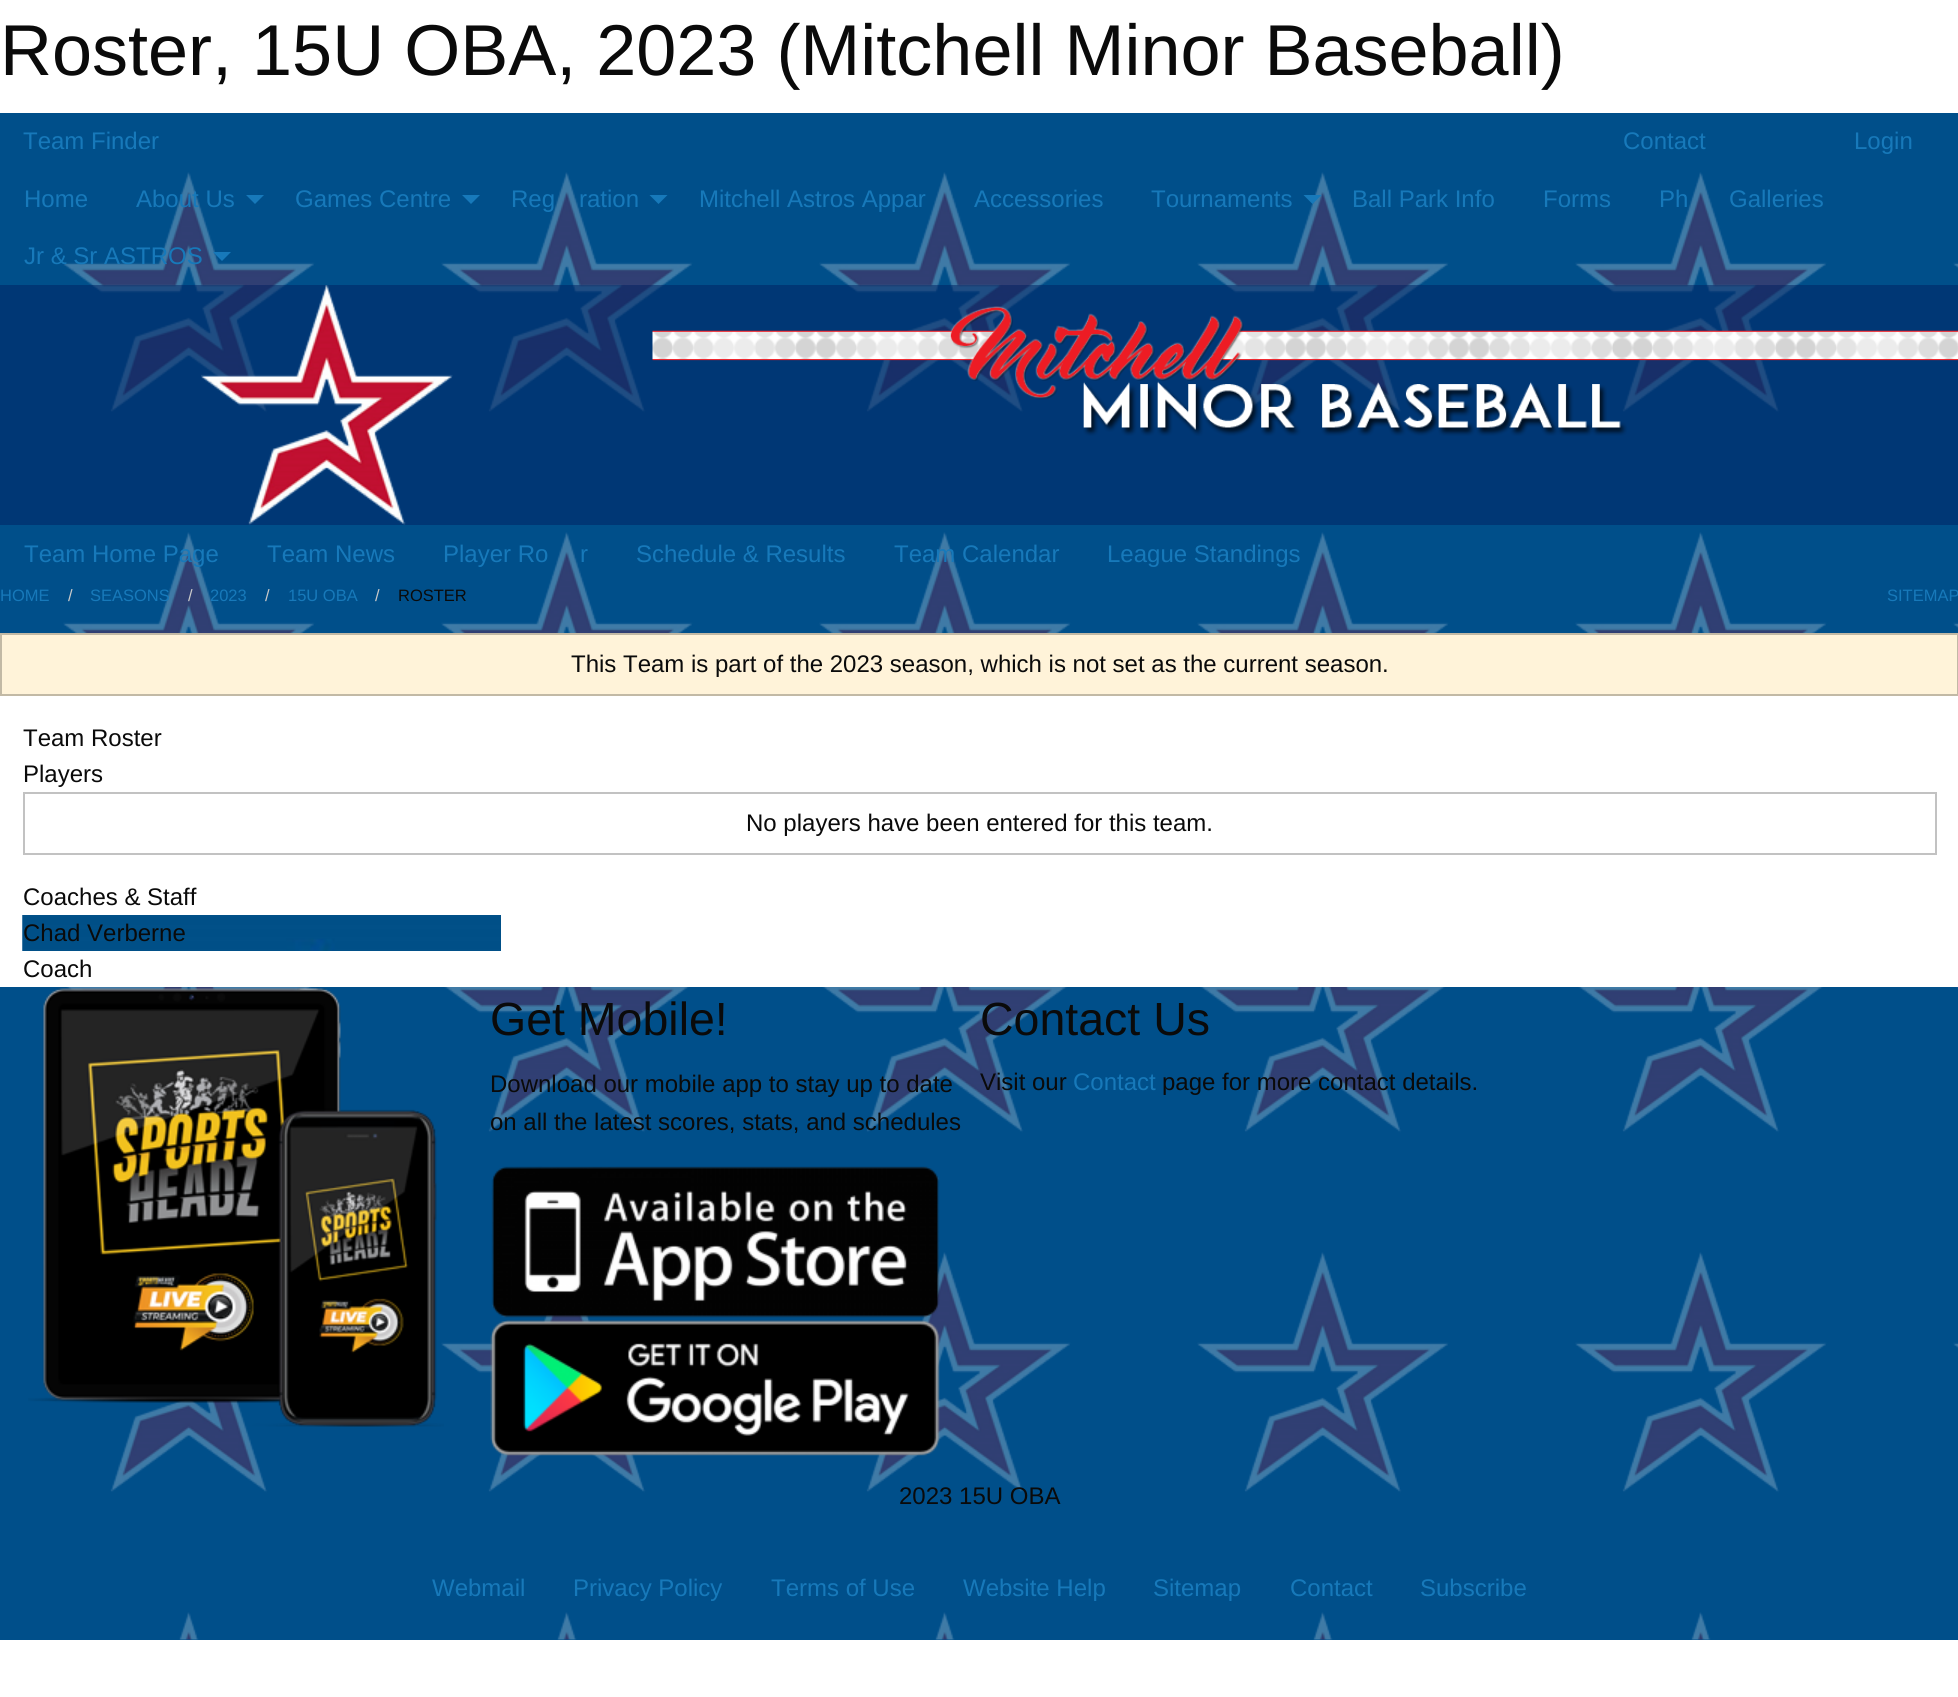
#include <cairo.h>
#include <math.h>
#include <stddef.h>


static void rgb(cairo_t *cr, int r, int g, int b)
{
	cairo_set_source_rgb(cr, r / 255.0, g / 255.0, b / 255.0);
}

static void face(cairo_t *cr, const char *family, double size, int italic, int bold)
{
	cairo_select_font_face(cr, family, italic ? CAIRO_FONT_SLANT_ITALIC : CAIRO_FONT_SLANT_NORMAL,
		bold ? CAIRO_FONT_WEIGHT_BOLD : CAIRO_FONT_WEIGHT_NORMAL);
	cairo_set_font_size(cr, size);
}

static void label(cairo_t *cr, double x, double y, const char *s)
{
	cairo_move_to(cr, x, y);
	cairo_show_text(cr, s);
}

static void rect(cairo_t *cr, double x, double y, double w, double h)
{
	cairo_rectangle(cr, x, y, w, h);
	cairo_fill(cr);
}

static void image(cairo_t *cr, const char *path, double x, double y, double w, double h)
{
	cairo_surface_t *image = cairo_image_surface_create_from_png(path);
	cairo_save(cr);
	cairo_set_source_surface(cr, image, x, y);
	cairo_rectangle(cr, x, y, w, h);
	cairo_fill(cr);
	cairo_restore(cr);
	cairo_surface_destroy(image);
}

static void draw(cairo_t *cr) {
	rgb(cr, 255, 255, 255);
	cairo_paint(cr);
	face(cr, "Liberation Sans", 72, 0, 0);
	rgb(cr, 10, 10, 10);
	label(cr, 0, 75, "Roster, 15U OBA, 2023 (Mitchell Minor Baseball)");
	rgb(cr, 0, 79, 138);
	rect(cr, 0, 113, 1958, 1527);
	image(cr, "image0.png", 63, 172, 1895, 1468);
	face(cr, "Liberation Sans", 24, 0, 0);
	rgb(cr, 23, 121, 186);
	label(cr, 23, 149, "Team Finder");
	label(cr, 1623, 149, "Contact");
	label(cr, 1854, 149, "Login");
	label(cr, 24, 207, "Home");
	label(cr, 136, 207, "About Us");
	cairo_new_path(cr);
	cairo_move_to(cr, 246, 195);
	cairo_line_to(cr, 264, 195);
	cairo_line_to(cr, 255, 204);
	cairo_close_path(cr);
	cairo_fill(cr);
	label(cr, 295, 207, "Games Centre");
	cairo_new_path(cr);
	cairo_move_to(cr, 462, 195);
	cairo_line_to(cr, 480, 195);
	cairo_line_to(cr, 471, 204);
	cairo_close_path(cr);
	cairo_fill(cr);
	label(cr, 511, 207, "Reg");
	label(cr, 579, 207, "ration");
	cairo_new_path(cr);
	cairo_move_to(cr, 649.5, 195);
	cairo_line_to(cr, 667.5, 195);
	cairo_line_to(cr, 658.5, 204);
	cairo_close_path(cr);
	cairo_fill(cr);
	label(cr, 699, 207, "Mitchell Astros Appar");
	label(cr, 974, 207, "Accessories");
	label(cr, 1151, 207, "Tournaments");
	cairo_new_path(cr);
	cairo_move_to(cr, 1303.5, 195);
	cairo_line_to(cr, 1321.5, 195);
	cairo_line_to(cr, 1312.5, 204);
	cairo_close_path(cr);
	cairo_fill(cr);
	label(cr, 1352, 207, "Ball Park Info");
	label(cr, 1543, 207, "Forms");
	label(cr, 1659, 207, "Ph");
	label(cr, 1729, 207, "Galleries");
	label(cr, 24, 264, "Jr & Sr ASTROS");
	cairo_new_path(cr);
	cairo_move_to(cr, 213, 252);
	cairo_line_to(cr, 231, 252);
	cairo_line_to(cr, 222, 261);
	cairo_close_path(cr);
	cairo_fill(cr);
	cairo_set_source_rgba(cr, 0, 0.125, 0.376, 0.5);
	rect(cr, 0, 285, 1958, 240);
	image(cr, "image1.png", 201, 285, 252, 240);
	image(cr, "image2.png", 652, 306, 1306, 130);
	rgb(cr, 23, 121, 186);
	label(cr, 24, 562, "Team Home Page");
	label(cr, 267, 562, "Team News");
	label(cr, 443, 562, "Player Ro");
	label(cr, 580, 562, "r");
	label(cr, 636, 562, "Schedule & Results");
	label(cr, 894, 562, "Team Calendar");
	label(cr, 1107, 562, "League Standings");
	face(cr, "Liberation Sans", 16.5, 0, 0);
	label(cr, 0, 601, "HOME");
	rgb(cr, 202, 202, 202);
	label(cr, 68, 601, "/");
	rgb(cr, 23, 121, 186);
	label(cr, 90, 601, "SEASONS");
	rgb(cr, 202, 202, 202);
	label(cr, 188, 601, "/");
	rgb(cr, 23, 121, 186);
	label(cr, 210, 601, "2023");
	rgb(cr, 202, 202, 202);
	label(cr, 265, 601, "/");
	rgb(cr, 23, 121, 186);
	label(cr, 288, 601, "15U OBA");
	rgb(cr, 202, 202, 202);
	label(cr, 375, 601, "/");
	rgb(cr, 10, 10, 10);
	label(cr, 398, 601, "ROSTER");
	rgb(cr, 23, 121, 186);
	label(cr, 1887, 601, "SITEMAP");
	rgb(cr, 255, 255, 255);
	rect(cr, 0, 696, 1958, 291);
	rgb(cr, 255, 243, 217);
	cairo_rectangle(cr, 1, 634, 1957, 61);
	cairo_fill_preserve(cr);
	rgb(cr, 194, 185, 165);
	cairo_stroke(cr);
	face(cr, "Liberation Sans", 24, 0, 0);
	rgb(cr, 10, 10, 10);
	label(cr, 571, 672, "This Team is part of the 2023 season, which is not set as the current season.");
	label(cr, 23, 746, "Team Roster");
	label(cr, 23, 782, "Players");
	cairo_rectangle(cr, 24, 793, 1912, 61);
	rgb(cr, 194, 194, 194);
	cairo_stroke(cr);
	rgb(cr, 10, 10, 10);
	label(cr, 746, 831, "No players have been entered for this team.");
	label(cr, 23, 905, "Coaches & Staff");
	image(cr, "image3.png", 23, 915, 478, 36);
	rgb(cr, 63, 123, 165);
	rect(cr, 22, 915, 1, 36);
	rgb(cr, 10, 10, 10);
	label(cr, 23, 941, "Chad Verberne");
	label(cr, 23, 977, "Coach");
	image(cr, "image4.png", 28, 987, 416, 440);
	face(cr, "Liberation Sans", 46.5, 0, 0);
	label(cr, 490, 1035, "Get Mobile!");
	face(cr, "Liberation Sans", 24, 0, 0);
	label(cr, 490, 1092, "Download our mobile app to stay up to date");
	label(cr, 490, 1130, "on all the latest scores, stats, and schedules");
	image(cr, "image5.png", 491, 1166, 449, 152);
	image(cr, "image6.png", 490, 1320, 450, 136);
	face(cr, "Liberation Sans", 46.5, 0, 0);
	label(cr, 980, 1035, "Contact Us");
	face(cr, "Liberation Sans", 24, 0, 0);
	label(cr, 980, 1090, "Visit our");
	rgb(cr, 23, 121, 186);
	label(cr, 1073, 1090, "Contact");
	rgb(cr, 10, 10, 10);
	label(cr, 1162, 1090, "page for more contact details.");
	label(cr, 899, 1504, "2023 15U OBA");
	rgb(cr, 23, 121, 186);
	label(cr, 432, 1596, "Webmail");
	label(cr, 573, 1596, "Privacy Policy");
	label(cr, 771, 1596, "Terms of Use");
	label(cr, 963, 1596, "Website Help");
	label(cr, 1153, 1596, "Sitemap");
	label(cr, 1290, 1596, "Contact");
	label(cr, 1420, 1596, "Subscribe");
}

int main(void) {
	cairo_surface_t *surface = cairo_image_surface_create(CAIRO_FORMAT_RGB24, 1958, 1697);
	cairo_t *cr = cairo_create(surface);
	cairo_font_options_t *options = cairo_font_options_create();
	cairo_font_options_set_hint_metrics(options, CAIRO_HINT_METRICS_OFF);
	cairo_font_options_set_hint_style(options, CAIRO_HINT_STYLE_NONE);
	cairo_set_font_options(cr, options);
	cairo_set_miter_limit(cr, 4);
	draw(cr);
	cairo_surface_write_to_png(surface, "render.png");
	cairo_font_options_destroy(options);
	cairo_destroy(cr);
	cairo_surface_destroy(surface);
	return 0;
}
